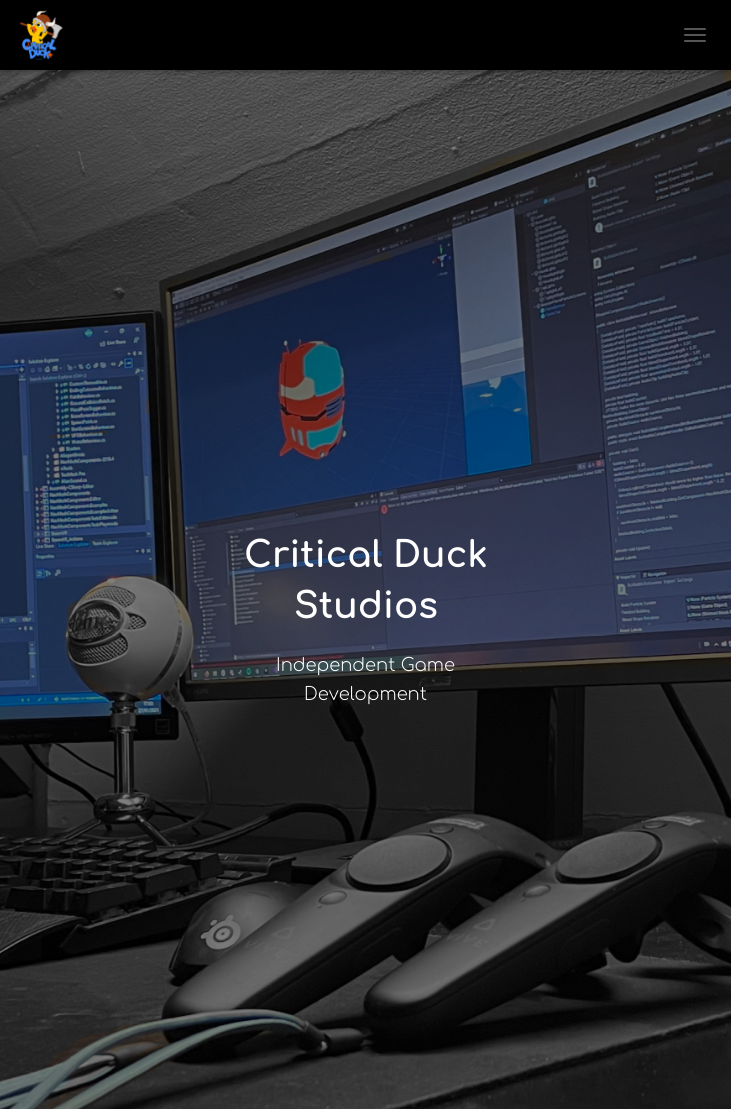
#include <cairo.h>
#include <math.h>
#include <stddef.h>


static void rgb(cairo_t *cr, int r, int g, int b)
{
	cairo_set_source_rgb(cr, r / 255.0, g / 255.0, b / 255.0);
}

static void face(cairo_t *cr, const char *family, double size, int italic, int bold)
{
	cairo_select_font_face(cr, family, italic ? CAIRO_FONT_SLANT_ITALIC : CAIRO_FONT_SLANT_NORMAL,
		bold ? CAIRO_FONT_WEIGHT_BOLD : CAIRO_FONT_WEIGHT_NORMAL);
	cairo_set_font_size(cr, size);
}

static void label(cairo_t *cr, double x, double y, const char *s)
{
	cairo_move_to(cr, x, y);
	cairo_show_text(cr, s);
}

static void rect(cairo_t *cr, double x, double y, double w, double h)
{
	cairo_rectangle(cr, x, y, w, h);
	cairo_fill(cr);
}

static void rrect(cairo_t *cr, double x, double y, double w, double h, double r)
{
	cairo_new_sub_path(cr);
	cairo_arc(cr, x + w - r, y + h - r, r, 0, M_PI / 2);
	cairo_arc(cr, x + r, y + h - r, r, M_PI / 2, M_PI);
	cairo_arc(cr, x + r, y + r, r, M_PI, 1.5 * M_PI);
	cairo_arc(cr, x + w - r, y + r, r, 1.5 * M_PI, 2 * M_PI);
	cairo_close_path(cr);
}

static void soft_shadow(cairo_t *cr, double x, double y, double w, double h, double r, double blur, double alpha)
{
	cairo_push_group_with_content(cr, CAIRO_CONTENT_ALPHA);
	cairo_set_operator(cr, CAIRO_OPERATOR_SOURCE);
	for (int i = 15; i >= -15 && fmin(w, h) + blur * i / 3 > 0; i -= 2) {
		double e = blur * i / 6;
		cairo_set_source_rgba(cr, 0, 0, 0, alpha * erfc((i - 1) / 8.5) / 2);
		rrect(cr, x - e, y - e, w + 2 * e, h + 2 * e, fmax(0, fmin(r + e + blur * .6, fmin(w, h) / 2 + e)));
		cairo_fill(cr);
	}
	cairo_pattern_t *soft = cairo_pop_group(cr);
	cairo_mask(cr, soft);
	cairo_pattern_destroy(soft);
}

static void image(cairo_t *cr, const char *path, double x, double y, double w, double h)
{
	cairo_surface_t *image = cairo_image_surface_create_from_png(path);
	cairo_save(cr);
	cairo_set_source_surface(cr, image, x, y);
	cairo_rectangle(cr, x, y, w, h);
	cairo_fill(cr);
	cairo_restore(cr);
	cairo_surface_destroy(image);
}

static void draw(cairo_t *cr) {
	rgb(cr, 255, 255, 255);
	cairo_paint(cr);
	image(cr, "image1.png", 0, 70, 731, 1039);
	rgb(cr, 0, 0, 0);
	soft_shadow(cr, 2, 6, 727, 66, 0, 2.5, 0.1);
	soft_shadow(cr, 0, 1, 731, 70, 0, 5, 0.12);
	soft_shadow(cr, 6, 7, 719, 58, 0, 5, 0.42);
	rgb(cr, 0, 0, 0);
	rect(cr, 0, 0, 731, 70);
	image(cr, "image0.png", 19, 10, 44, 50);
	rgb(cr, 85, 85, 85);
	rrect(cr, 684, 28, 22, 2, 1);
	cairo_fill(cr);
	rrect(cr, 684, 34, 22, 2, 1);
	cairo_fill(cr);
	rrect(cr, 684, 40, 22, 2, 1);
	cairo_fill(cr);
	face(cr, "Comfortaa", 36, 0, 1);
	rgb(cr, 255, 255, 255);
	label(cr, 244, 567, "Critical Duck");
	label(cr, 294, 618, "Studios");
	face(cr, "Comfortaa Light", 18, 0, 0);
	label(cr, 276, 671, "Independent Game");
	label(cr, 304, 700, "Development");
}

int main(void) {
	cairo_surface_t *surface = cairo_image_surface_create(CAIRO_FORMAT_RGB24, 731, 1109);
	cairo_t *cr = cairo_create(surface);
	cairo_font_options_t *options = cairo_font_options_create();
	cairo_font_options_set_hint_metrics(options, CAIRO_HINT_METRICS_OFF);
	cairo_font_options_set_hint_style(options, CAIRO_HINT_STYLE_NONE);
	cairo_set_font_options(cr, options);
	cairo_set_miter_limit(cr, 4);
	draw(cr);
	cairo_surface_write_to_png(surface, "render.png");
	cairo_font_options_destroy(options);
	cairo_destroy(cr);
	cairo_surface_destroy(surface);
	return 0;
}
